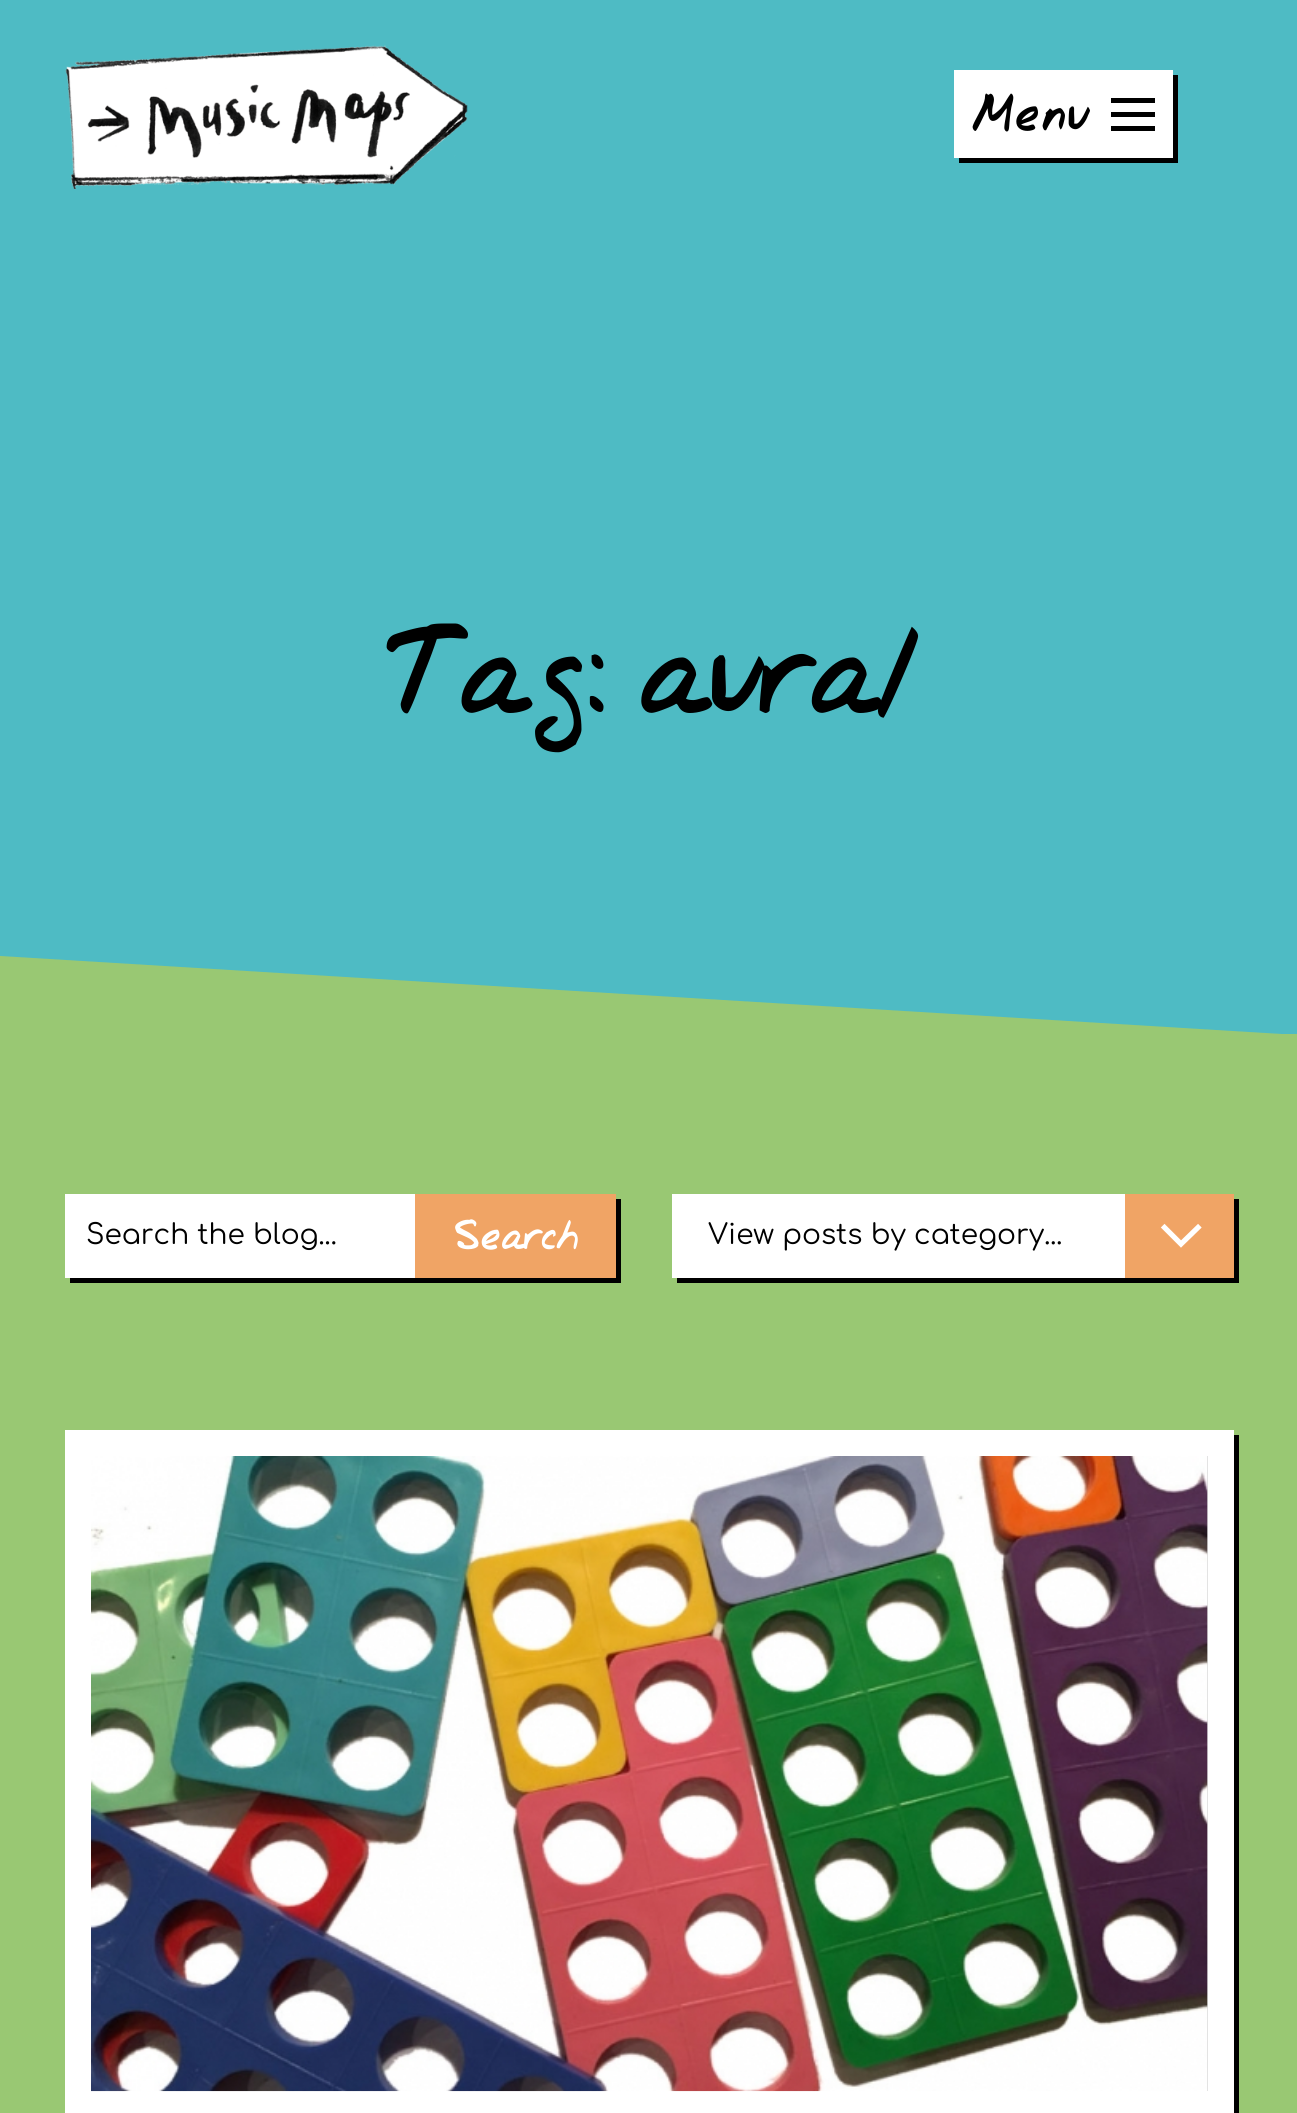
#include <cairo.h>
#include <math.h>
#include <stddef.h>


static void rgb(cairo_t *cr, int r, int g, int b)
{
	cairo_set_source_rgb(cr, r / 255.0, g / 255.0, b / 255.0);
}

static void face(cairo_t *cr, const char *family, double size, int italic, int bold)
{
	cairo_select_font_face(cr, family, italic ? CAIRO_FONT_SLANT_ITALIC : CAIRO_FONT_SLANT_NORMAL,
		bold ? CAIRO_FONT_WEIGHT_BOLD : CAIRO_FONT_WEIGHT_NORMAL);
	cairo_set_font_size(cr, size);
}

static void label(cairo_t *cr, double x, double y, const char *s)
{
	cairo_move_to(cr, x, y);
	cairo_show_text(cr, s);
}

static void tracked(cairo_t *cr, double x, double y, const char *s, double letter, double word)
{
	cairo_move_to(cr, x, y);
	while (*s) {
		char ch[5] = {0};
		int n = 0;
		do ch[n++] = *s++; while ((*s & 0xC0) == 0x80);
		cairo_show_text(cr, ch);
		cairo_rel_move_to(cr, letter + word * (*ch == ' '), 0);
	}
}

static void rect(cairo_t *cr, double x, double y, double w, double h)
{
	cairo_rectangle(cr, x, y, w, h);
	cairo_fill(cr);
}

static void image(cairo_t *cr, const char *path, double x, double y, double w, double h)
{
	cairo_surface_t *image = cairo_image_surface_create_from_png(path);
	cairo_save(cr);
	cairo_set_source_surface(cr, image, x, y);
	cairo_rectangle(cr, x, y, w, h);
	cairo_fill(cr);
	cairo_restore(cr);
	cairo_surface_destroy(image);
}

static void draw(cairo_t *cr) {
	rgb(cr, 78, 187, 196);
	cairo_paint(cr);
	image(cr, "image0.png", 65, 45, 403, 144);
	rgb(cr, 0, 0, 0);
	cairo_new_path(cr);
	cairo_move_to(cr, 959, 158);
	cairo_line_to(cr, 959, 163);
	cairo_line_to(cr, 1178, 163);
	cairo_line_to(cr, 1178, 75);
	cairo_line_to(cr, 1172, 75);
	cairo_line_to(cr, 1172, 158);
	cairo_close_path(cr);
	cairo_fill(cr);
	rgb(cr, 255, 255, 255);
	rect(cr, 954, 70, 219, 88);
	face(cr, "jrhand", 60, 0, 0);
	rgb(cr, 0, 0, 0);
	tracked(cr, 971, 130, "Menu", -3, 0);
	rect(cr, 1111, 98, 44, 5);
	rect(cr, 1111, 112, 44, 5);
	rect(cr, 1111, 126, 44, 5);
	face(cr, "jrhand", 147, 0, 0);
	tracked(cr, 391, 713, "Tag: aural", -7.25, 0);
	rgb(cr, 153, 200, 115);
	rect(cr, 1282, 1034, 15, 1);
	cairo_new_path(cr);
	cairo_move_to(cr, 0, 956);
	cairo_line_to(cr, 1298, 1035);
	cairo_line_to(cr, 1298, 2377);
	cairo_line_to(cr, 0, 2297);
	cairo_close_path(cr);
	cairo_fill(cr);
	rgb(cr, 0, 0, 0);
	cairo_new_path(cr);
	cairo_move_to(cr, 70, 1278);
	cairo_line_to(cr, 70, 1283);
	cairo_line_to(cr, 420, 1283);
	cairo_line_to(cr, 420, 1199);
	cairo_line_to(cr, 415, 1199);
	cairo_line_to(cr, 415, 1278);
	cairo_close_path(cr);
	cairo_fill(cr);
	rgb(cr, 255, 255, 255);
	rect(cr, 65, 1194, 350, 84);
	face(cr, "Comfortaa", 28, 0, 0);
	rgb(cr, 0, 0, 0);
	label(cr, 86, 1244, "Search the blog...");
	cairo_new_path(cr);
	cairo_move_to(cr, 420, 1278);
	cairo_line_to(cr, 420, 1283);
	cairo_line_to(cr, 621, 1283);
	cairo_line_to(cr, 621, 1199);
	cairo_line_to(cr, 616, 1199);
	cairo_line_to(cr, 616, 1278);
	cairo_close_path(cr);
	cairo_fill(cr);
	rgb(cr, 240, 164, 101);
	rect(cr, 415, 1194, 201, 84);
	face(cr, "jrhand", 49, 0, 0);
	rgb(cr, 255, 255, 255);
	tracked(cr, 453, 1249, "Search", -2.5, 0);
	rgb(cr, 0, 0, 0);
	cairo_new_path(cr);
	cairo_move_to(cr, 677, 1278);
	cairo_line_to(cr, 677, 1283);
	cairo_line_to(cr, 1239, 1283);
	cairo_line_to(cr, 1239, 1199);
	cairo_line_to(cr, 1234, 1199);
	cairo_line_to(cr, 1234, 1278);
	cairo_close_path(cr);
	cairo_fill(cr);
	rgb(cr, 255, 255, 255);
	rect(cr, 672, 1194, 453, 84);
	cairo_save(cr);
	cairo_rectangle(cr, 1125, 1194, 109, 84);
	cairo_clip(cr);
	rgb(cr, 240, 164, 101);
	cairo_set_fill_rule(cr, CAIRO_FILL_RULE_EVEN_ODD);
	cairo_new_path(cr);
	cairo_move_to(cr, 1125, 1176);
	cairo_line_to(cr, 1235, 1176);
	cairo_line_to(cr, 1237, 1293);
	cairo_line_to(cr, 1125, 1293);
	cairo_close_path(cr);
	cairo_fill(cr);
	cairo_restore(cr);
	cairo_new_path(cr);
	cairo_move_to(cr, 1164.5, 1227.5);
	cairo_line_to(cr, 1181, 1244);
	cairo_move_to(cr, 1198, 1227.5);
	cairo_line_to(cr, 1181, 1244);
	cairo_set_line_width(cr, 5.2);
	cairo_set_line_cap(cr, CAIRO_LINE_CAP_SQUARE);
	cairo_stroke(cr);
	face(cr, "Comfortaa", 28, 0, 0);
	rgb(cr, 0, 0, 0);
	label(cr, 708, 1244, "View posts by category...");
	cairo_new_path(cr);
	cairo_move_to(cr, 70, 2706);
	cairo_line_to(cr, 70, 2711);
	cairo_line_to(cr, 1239, 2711);
	cairo_line_to(cr, 1239, 1435);
	cairo_line_to(cr, 1234, 1435);
	cairo_line_to(cr, 1234, 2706);
	cairo_close_path(cr);
	cairo_fill(cr);
	rgb(cr, 255, 255, 255);
	rect(cr, 65, 1430, 1169, 683);
	rgb(cr, 218, 218, 218);
	rect(cr, 1207, 1456, 1, 635);
	image(cr, "image1.png", 91, 1456, 1117, 636);
}

int main(void) {
	cairo_surface_t *surface = cairo_image_surface_create(CAIRO_FORMAT_RGB24, 1297, 2113);
	cairo_t *cr = cairo_create(surface);
	cairo_font_options_t *options = cairo_font_options_create();
	cairo_font_options_set_hint_metrics(options, CAIRO_HINT_METRICS_OFF);
	cairo_font_options_set_hint_style(options, CAIRO_HINT_STYLE_NONE);
	cairo_set_font_options(cr, options);
	cairo_set_miter_limit(cr, 4);
	draw(cr);
	cairo_surface_write_to_png(surface, "render.png");
	cairo_font_options_destroy(options);
	cairo_destroy(cr);
	cairo_surface_destroy(surface);
	return 0;
}
